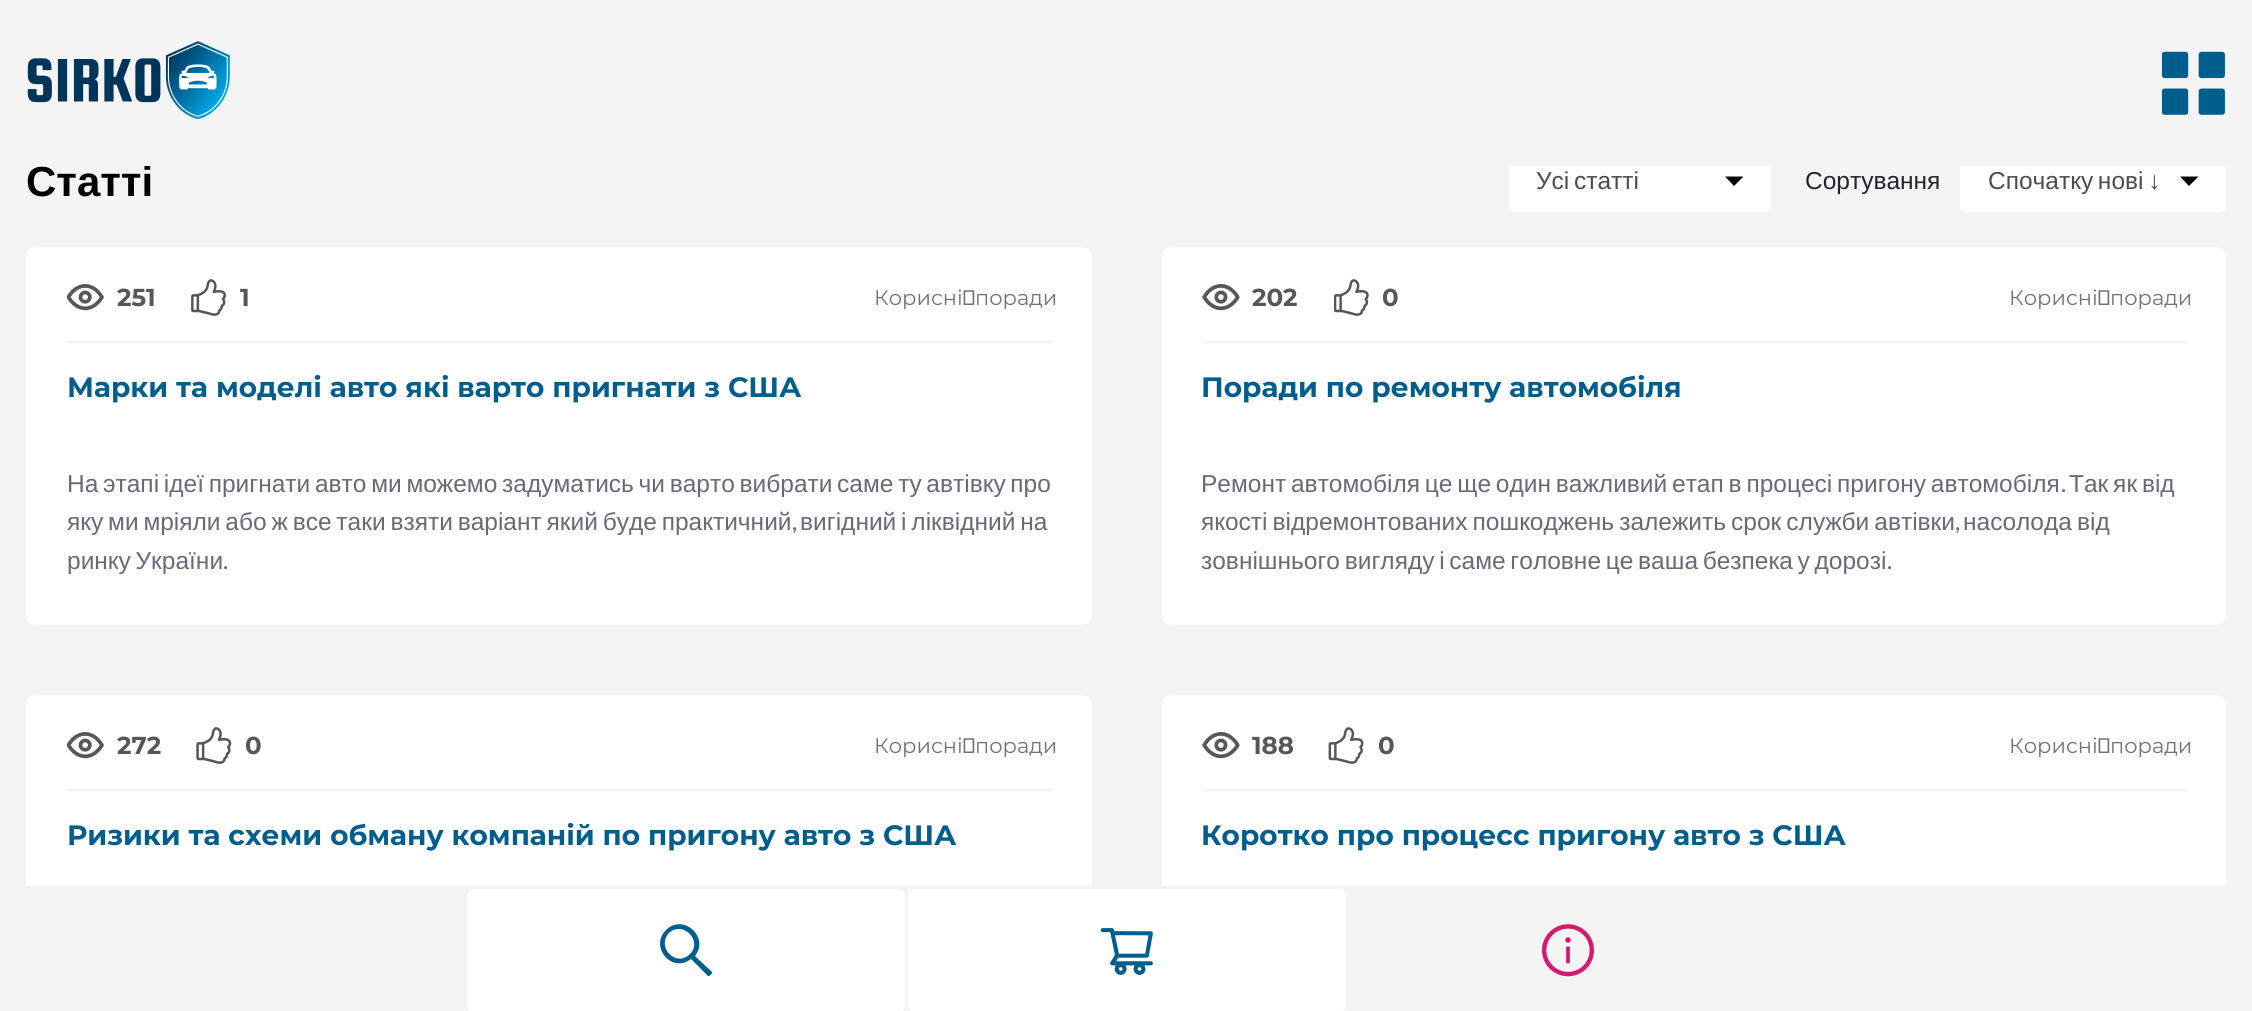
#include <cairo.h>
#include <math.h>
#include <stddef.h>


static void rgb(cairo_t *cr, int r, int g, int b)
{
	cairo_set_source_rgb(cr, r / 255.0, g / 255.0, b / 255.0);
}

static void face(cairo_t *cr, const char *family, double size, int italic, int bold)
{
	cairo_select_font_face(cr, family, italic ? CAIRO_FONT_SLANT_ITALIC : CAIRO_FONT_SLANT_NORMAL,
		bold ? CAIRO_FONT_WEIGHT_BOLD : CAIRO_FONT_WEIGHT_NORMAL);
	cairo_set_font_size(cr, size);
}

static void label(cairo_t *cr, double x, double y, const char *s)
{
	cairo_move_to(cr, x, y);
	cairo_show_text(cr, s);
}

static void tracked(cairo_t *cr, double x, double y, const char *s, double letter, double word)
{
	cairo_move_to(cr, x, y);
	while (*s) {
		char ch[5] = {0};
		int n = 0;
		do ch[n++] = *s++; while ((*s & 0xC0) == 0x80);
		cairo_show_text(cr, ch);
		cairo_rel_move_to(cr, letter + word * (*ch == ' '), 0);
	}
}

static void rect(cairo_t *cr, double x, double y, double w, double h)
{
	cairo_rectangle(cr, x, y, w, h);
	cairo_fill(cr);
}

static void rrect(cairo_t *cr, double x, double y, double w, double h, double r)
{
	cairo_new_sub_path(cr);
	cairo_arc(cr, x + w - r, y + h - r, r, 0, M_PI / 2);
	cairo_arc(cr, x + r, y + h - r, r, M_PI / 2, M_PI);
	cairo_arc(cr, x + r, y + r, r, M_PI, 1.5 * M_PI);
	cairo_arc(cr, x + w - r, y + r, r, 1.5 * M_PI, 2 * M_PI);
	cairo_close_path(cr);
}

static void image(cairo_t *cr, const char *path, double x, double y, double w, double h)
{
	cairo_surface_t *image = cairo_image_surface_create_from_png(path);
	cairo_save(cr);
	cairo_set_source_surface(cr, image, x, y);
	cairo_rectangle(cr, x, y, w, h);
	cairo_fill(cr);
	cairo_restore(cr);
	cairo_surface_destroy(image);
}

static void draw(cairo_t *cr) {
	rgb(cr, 244, 244, 244);
	cairo_paint(cr);
	face(cr, "Liberation Sans", 42, 0, 1);
	rgb(cr, 0, 0, 0);
	label(cr, 26, 196, "Статті");
	rgb(cr, 255, 255, 255);
	rrect(cr, 1509, 149, 262, 63, 7);
	cairo_fill(cr);
	rgb(cr, 0, 0, 0);
	cairo_new_path(cr);
	cairo_move_to(cr, 1734, 186);
	cairo_line_to(cr, 1725, 176.5);
	cairo_line_to(cr, 1743.5, 176.5);
	cairo_close_path(cr);
	cairo_fill(cr);
	rrect(cr, 1510, 150, 260, 61, 6);
	rgb(cr, 255, 255, 255);
	cairo_stroke(cr);
	rrect(cr, 1960, 149, 266, 63, 7);
	cairo_fill(cr);
	rgb(cr, 0, 0, 0);
	cairo_new_path(cr);
	cairo_move_to(cr, 2189, 186);
	cairo_line_to(cr, 2180, 176.5);
	cairo_line_to(cr, 2198.5, 176.5);
	cairo_close_path(cr);
	cairo_fill(cr);
	rrect(cr, 1961, 150, 264, 61, 6);
	rgb(cr, 255, 255, 255);
	cairo_stroke(cr);
	rgb(cr, 244, 244, 244);
	rect(cr, 144, 149, 2082, 17);
	image(cr, "image0.png", 27, 58, 134, 45);
	image(cr, "image1.png", 165, 41, 65, 79);
	image(cr, "image2.png", 2161, 51, 64, 64);
	face(cr, "Liberation Sans", 24.5, 0, 0);
	rgb(cr, 77, 77, 77);
	tracked(cr, 1536, 189, "Усі статті", 0, -2.1);
	rgb(cr, 33, 37, 41);
	label(cr, 1805, 189, "Сортування");
	rgb(cr, 77, 77, 77);
	tracked(cr, 1988, 189, "Спочатку нові ↓", 0, -2.1);
	rgb(cr, 255, 255, 255);
	rrect(cr, 26, 247, 1066, 378, 9);
	cairo_fill(cr);
	rgb(cr, 242, 242, 242);
	rect(cr, 67, 341, 985, 2);
	image(cr, "image3.png", 67, 284, 37, 27);
	face(cr, "Montserrat", 24.5, 0, 1);
	rgb(cr, 87, 87, 87);
	label(cr, 117, 306, "251");
	image(cr, "image4.png", 191, 279, 35, 37);
	label(cr, 240, 306, "1");
	face(cr, "Montserrat", 21, 0, 0);
	rgb(cr, 108, 117, 125);
	label(cr, 874, 305, "Корисні поради");
	face(cr, "Montserrat", 28, 0, 1);
	rgb(cr, 0, 94, 141);
	label(cr, 67, 397, "Марки та моделі авто які варто пригнати з США");
	face(cr, "Liberation Sans", 24.5, 0, 0);
	rgb(cr, 104, 105, 121);
	tracked(cr, 67, 492, "На этапі ідеї пригнати авто ми можемо задуматись чи варто вибрати саме ту автівку про", 0, -2.1);
	tracked(cr, 67, 530, "яку ми мріяли або ж все таки взяти варіант який буде практичний", 0, -2);
	face(cr, "Lato", 24.5, 0, 0);
	label(cr, 792, 530, ",");
	face(cr, "Liberation Sans", 24.5, 0, 0);
	tracked(cr, 800, 530, "вигідний і ліквідний на", 0, -2);
	tracked(cr, 67, 569, "ринку України", 0, -2.1);
	face(cr, "Lato", 24.5, 0, 0);
	label(cr, 223, 569, ".");
	rgb(cr, 255, 255, 255);
	rrect(cr, 1162, 247, 1064, 378, 9);
	cairo_fill(cr);
	rgb(cr, 242, 242, 242);
	rect(cr, 1202, 341, 984, 2);
	image(cr, "image5.png", 1202, 284, 38, 27);
	face(cr, "Montserrat", 24.5, 0, 1);
	rgb(cr, 87, 87, 87);
	label(cr, 1252, 306, "202");
	image(cr, "image6.png", 1334, 279, 35, 37);
	label(cr, 1382, 306, "0");
	face(cr, "Montserrat", 21, 0, 0);
	rgb(cr, 108, 117, 125);
	label(cr, 2009, 305, "Корисні поради");
	face(cr, "Montserrat", 28, 0, 1);
	rgb(cr, 0, 94, 141);
	label(cr, 1201, 397, "Поради по ремонту автомобіля");
	face(cr, "Liberation Sans", 24.5, 0, 0);
	rgb(cr, 104, 105, 121);
	tracked(cr, 1201, 492, "Ремонт автомобіля це ще один важливий етап в процесі пригону автомобіля", 0, -2);
	face(cr, "Lato", 24.5, 0, 0);
	label(cr, 2061, 492, ".");
	face(cr, "Liberation Sans", 24.5, 0, 0);
	tracked(cr, 2069, 492, "Так як від", 0, -2);
	tracked(cr, 1201, 530, "якості відремонтованих пошкоджень залежить срок служби автівки", 0, -1.75);
	face(cr, "Lato", 24.5, 0, 0);
	label(cr, 1955, 530, ",");
	face(cr, "Liberation Sans", 24.5, 0, 0);
	tracked(cr, 1963, 530, "насолода від", 0, -1.75);
	tracked(cr, 1201, 569, "зовнішнього вигляду і саме головне це ваша безпека у дорозі", 0, -2.1);
	face(cr, "Lato", 24.5, 0, 0);
	label(cr, 1887, 569, ".");
	rgb(cr, 255, 255, 255);
	rrect(cr, 26, 695, 1066, 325, 9);
	cairo_fill(cr);
	rgb(cr, 242, 242, 242);
	rect(cr, 67, 789, 985, 2);
	image(cr, "image3.png", 67, 732, 37, 27);
	face(cr, "Montserrat", 24.5, 0, 1);
	rgb(cr, 87, 87, 87);
	label(cr, 117, 754, "272");
	image(cr, "image7.png", 196, 727, 36, 37);
	label(cr, 245, 754, "0");
	face(cr, "Montserrat", 21, 0, 0);
	rgb(cr, 108, 117, 125);
	label(cr, 874, 753, "Корисні поради");
	face(cr, "Montserrat", 28, 0, 1);
	rgb(cr, 0, 94, 141);
	label(cr, 67, 845, "Ризики та схеми обману компаній по пригону авто з США");
	rgb(cr, 255, 255, 255);
	rrect(cr, 1162, 695, 1064, 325, 9);
	cairo_fill(cr);
	rgb(cr, 242, 242, 242);
	rect(cr, 1202, 789, 984, 2);
	image(cr, "image5.png", 1202, 732, 38, 27);
	face(cr, "Montserrat", 24.5, 0, 1);
	rgb(cr, 87, 87, 87);
	label(cr, 1252, 754, "188");
	image(cr, "image8.png", 1328, 727, 36, 37);
	label(cr, 1378, 754, "0");
	face(cr, "Montserrat", 21, 0, 0);
	rgb(cr, 108, 117, 125);
	label(cr, 2009, 753, "Корисні поради");
	face(cr, "Montserrat", 28, 0, 1);
	rgb(cr, 0, 94, 141);
	label(cr, 1201, 845, "Коротко про процесс пригону авто з США");
	rgb(cr, 244, 244, 244);
	rect(cr, 26, 886, 2200, 125);
	rgb(cr, 255, 255, 255);
	rrect(cr, 467, 889, 438, 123, 7);
	cairo_fill(cr);
	rgb(cr, 0, 94, 141);
	cairo_new_path(cr);
	cairo_move_to(cr, 712, 972);
	cairo_line_to(cr, 695, 956);
	cairo_curve_to(cr, 710, 937, 683, 913, 666, 930);
	cairo_curve_to(cr, 649, 947, 672, 974, 691, 959);
	cairo_line_to(cr, 708, 976);
	cairo_curve_to(cr, 709, 977, 713, 973, 712, 972);
	cairo_close_path(cr);
	cairo_move_to(cr, 690, 954);
	cairo_curve_to(cr, 676, 968, 656, 947, 669, 933);
	cairo_curve_to(cr, 683, 920, 703, 941, 690, 954);
	cairo_close_path(cr);
	cairo_fill(cr);
	rgb(cr, 255, 255, 255);
	rrect(cr, 908, 889, 438, 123, 7);
	cairo_fill(cr);
	image(cr, "image9.png", 1100, 928, 53, 47);
	image(cr, "image10.png", 1542, 924, 52, 53);
}

int main(void) {
	cairo_surface_t *surface = cairo_image_surface_create(CAIRO_FORMAT_RGB24, 2252, 1011);
	cairo_t *cr = cairo_create(surface);
	cairo_font_options_t *options = cairo_font_options_create();
	cairo_font_options_set_hint_metrics(options, CAIRO_HINT_METRICS_OFF);
	cairo_font_options_set_hint_style(options, CAIRO_HINT_STYLE_NONE);
	cairo_set_font_options(cr, options);
	cairo_set_miter_limit(cr, 4);
	draw(cr);
	cairo_surface_write_to_png(surface, "render.png");
	cairo_font_options_destroy(options);
	cairo_destroy(cr);
	cairo_surface_destroy(surface);
	return 0;
}
